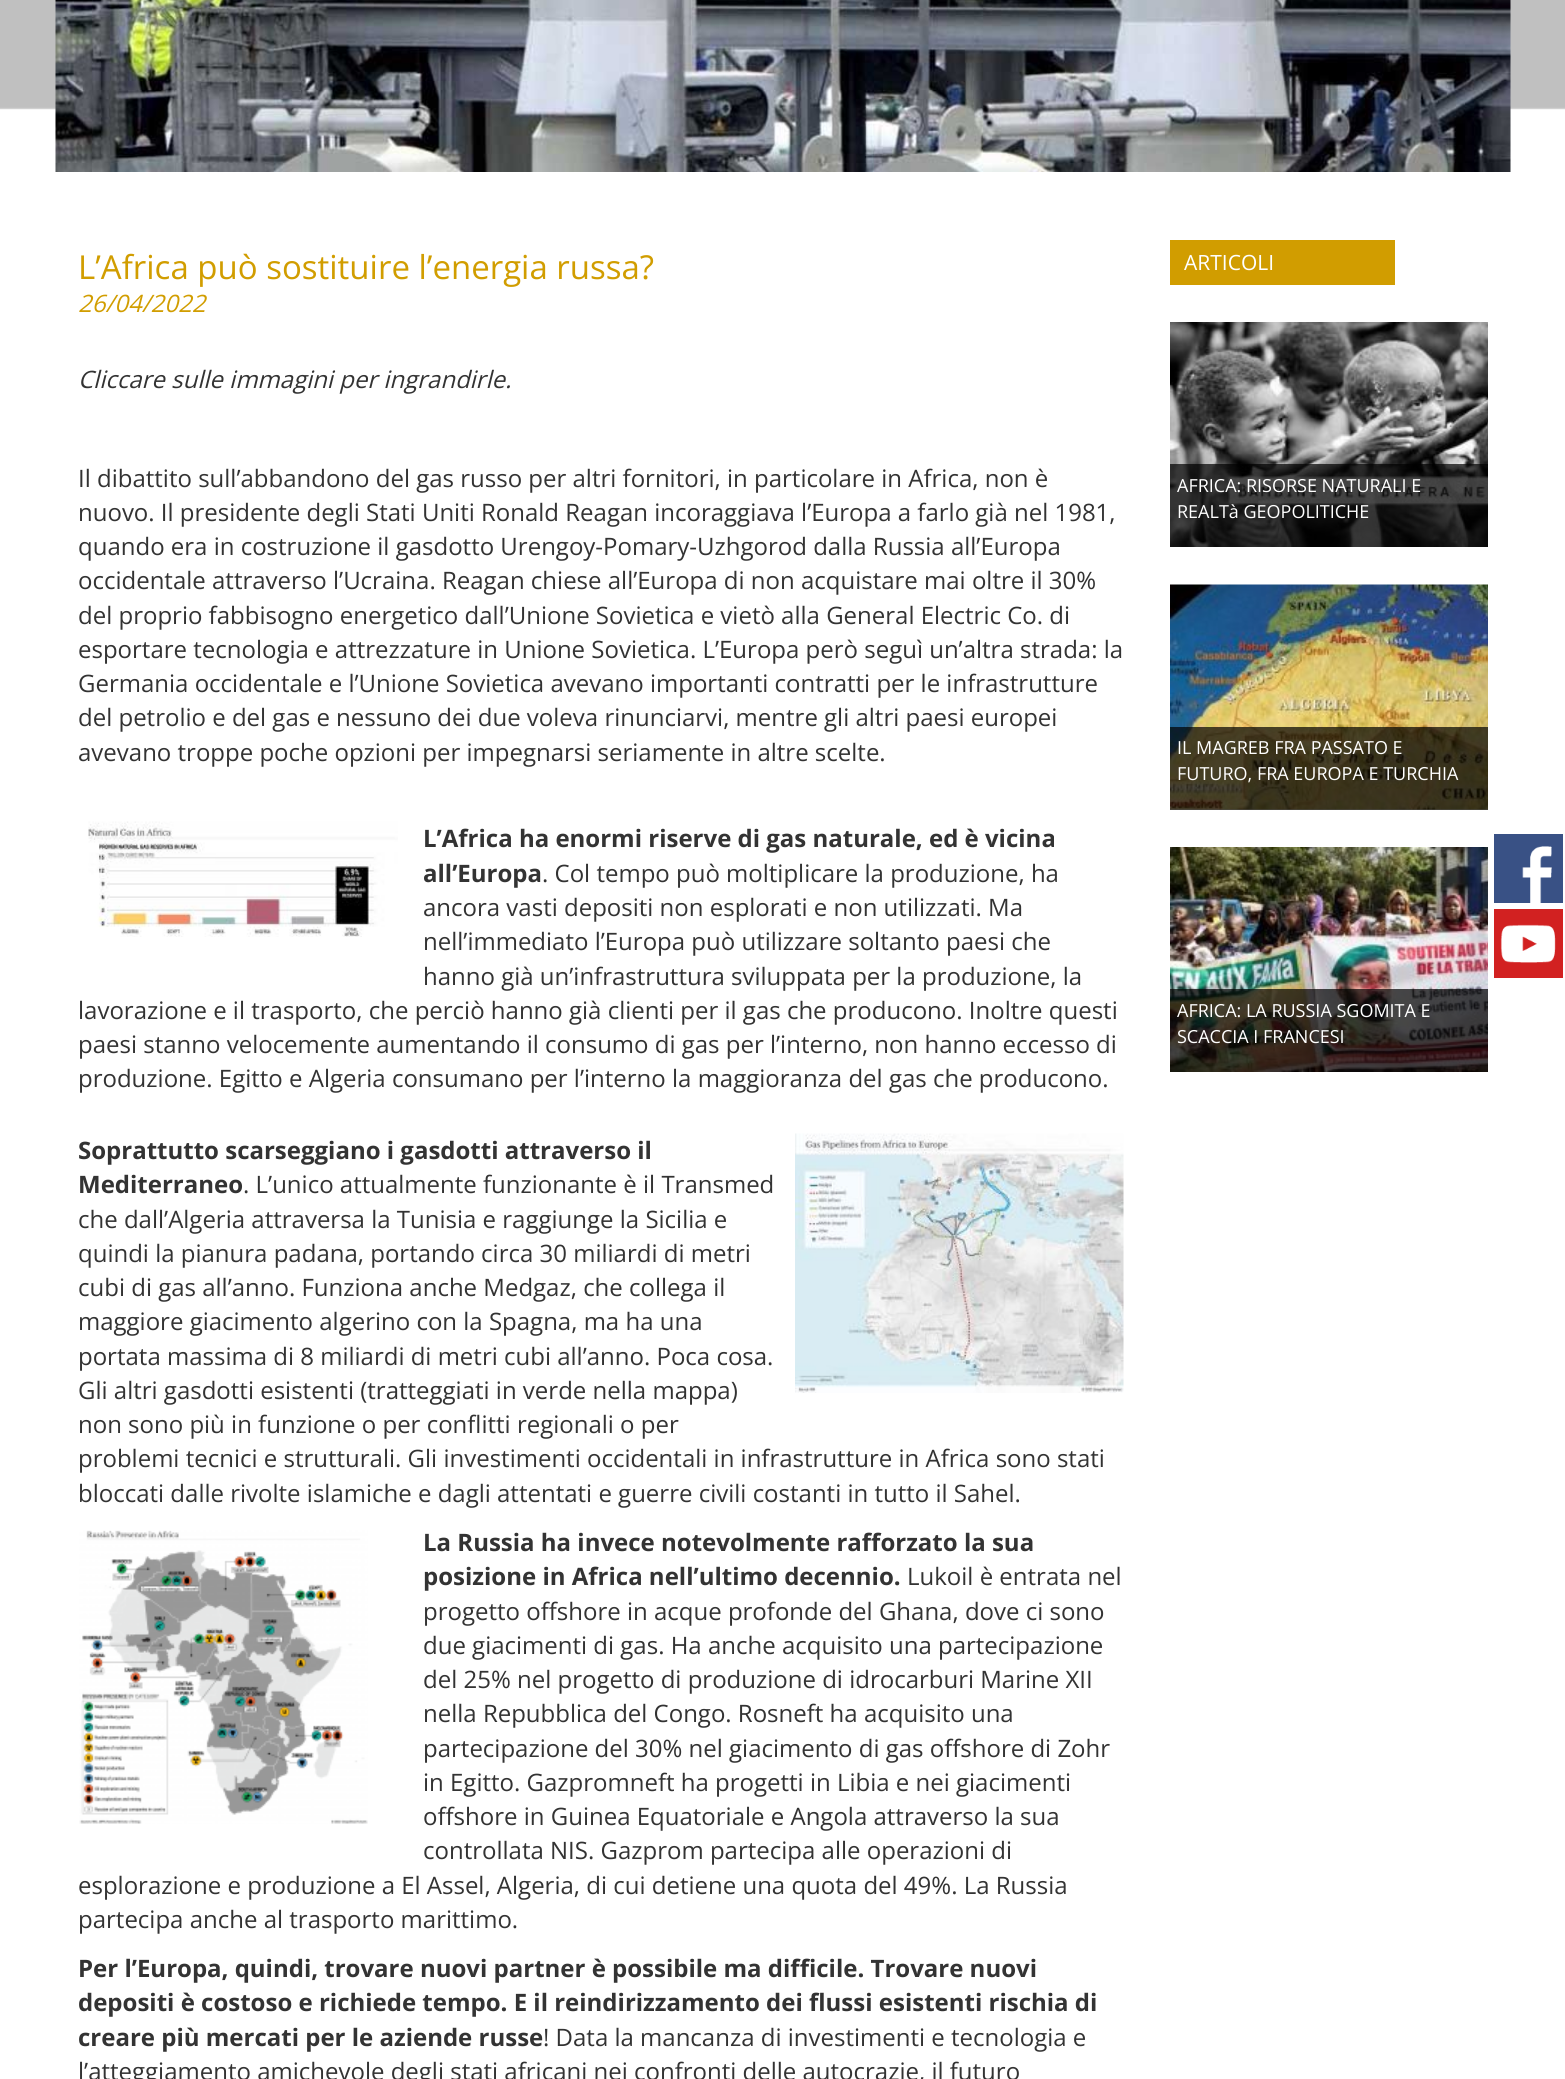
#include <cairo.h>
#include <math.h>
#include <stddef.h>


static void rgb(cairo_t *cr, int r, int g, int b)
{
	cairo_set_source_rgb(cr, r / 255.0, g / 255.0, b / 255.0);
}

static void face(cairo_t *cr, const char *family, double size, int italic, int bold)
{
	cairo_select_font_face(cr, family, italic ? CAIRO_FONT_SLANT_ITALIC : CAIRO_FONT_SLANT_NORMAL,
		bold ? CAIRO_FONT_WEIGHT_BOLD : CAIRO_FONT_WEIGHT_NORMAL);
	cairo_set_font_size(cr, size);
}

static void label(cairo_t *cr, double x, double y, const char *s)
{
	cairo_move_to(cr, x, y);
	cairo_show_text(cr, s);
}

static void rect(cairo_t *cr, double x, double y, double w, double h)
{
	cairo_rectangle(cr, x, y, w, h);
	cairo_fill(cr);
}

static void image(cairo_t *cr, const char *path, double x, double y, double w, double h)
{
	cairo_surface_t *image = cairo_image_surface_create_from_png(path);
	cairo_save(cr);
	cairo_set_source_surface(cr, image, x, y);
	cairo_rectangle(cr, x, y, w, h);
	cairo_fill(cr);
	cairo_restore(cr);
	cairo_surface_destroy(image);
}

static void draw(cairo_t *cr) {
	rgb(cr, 255, 255, 255);
	cairo_paint(cr);
	image(cr, "image0.png", 0, 0, 1565, 110);
	image(cr, "image1.png", 55, 0, 1456, 172);
	face(cr, "Open Sans", 33, 0, 0);
	rgb(cr, 209, 157, 0);
	label(cr, 78, 279, "L’Africa può sostituire l’energia russa?");
	face(cr, "Open Sans", 24, 1, 0);
	label(cr, 78, 312, "26/04/2022");
	rgb(cr, 51, 51, 51);
	label(cr, 78, 388, "Cliccare sulle immagini per ingrandirle.");
	face(cr, "Open Sans", 24, 0, 0);
	label(cr, 78, 487, "Il dibattito sull’abbandono del gas russo per altri fornitori, in particolare in Africa, non è");
	label(cr, 78, 521, "nuovo. Il presidente degli Stati Uniti Ronald Reagan incoraggiava l’Europa a farlo già nel 1981,");
	label(cr, 78, 555, "quando era in costruzione il gasdotto Urengoy-Pomary-Uzhgorod dalla Russia all’Europa");
	label(cr, 78, 589, "occidentale attraverso l’Ucraina. Reagan chiese all’Europa di non acquistare mai oltre il 30%");
	label(cr, 78, 624, "del proprio fabbisogno energetico dall’Unione Sovietica e vietò alla General Electric Co. di");
	label(cr, 78, 658, "esportare tecnologia e attrezzature in Unione Sovietica. L’Europa però seguì un’altra strada: la");
	label(cr, 78, 692, "Germania occidentale e l’Unione Sovietica avevano importanti contratti per le infrastrutture");
	label(cr, 78, 726, "del petrolio e del gas e nessuno dei due voleva rinunciarvi, mentre gli altri paesi europei");
	label(cr, 78, 761, "avevano troppe poche opzioni per impegnarsi seriamente in altre scelte.");
	image(cr, "image2.png", 88, 821, 310, 116);
	face(cr, "Open Sans", 24, 0, 1);
	label(cr, 423, 847, "L’Africa ha enormi riserve di gas naturale, ed è vicina");
	label(cr, 423, 882, "all’Europa");
	face(cr, "Open Sans", 24, 0, 0);
	label(cr, 542, 882, ". Col tempo può moltiplicare la produzione, ha");
	label(cr, 423, 916, "ancora vasti depositi non esplorati e non utilizzati. Ma");
	label(cr, 423, 950, "nell’immediato l’Europa può utilizzare soltanto paesi che");
	label(cr, 423, 985, "hanno già un’infrastruttura sviluppata per la produzione, la");
	label(cr, 78, 1019, "lavorazione e il trasporto, che perciò hanno già clienti per il gas che producono. Inoltre questi");
	label(cr, 78, 1053, "paesi stanno velocemente aumentando il consumo di gas per l’interno, non hanno eccesso di");
	label(cr, 78, 1087, "produzione. Egitto e Algeria consumano per l’interno la maggioranza del gas che producono.");
	image(cr, "image3.png", 795, 1133, 329, 260);
	face(cr, "Open Sans", 24, 0, 1);
	label(cr, 78, 1159, "Soprattutto scarseggiano i gasdotti attraverso il");
	label(cr, 78, 1193, "Mediterraneo");
	face(cr, "Open Sans", 24, 0, 0);
	label(cr, 243, 1193, ". L’unico attualmente funzionante è il Transmed");
	label(cr, 78, 1228, "che dall’Algeria attraversa la Tunisia e raggiunge la Sicilia e");
	label(cr, 78, 1262, "quindi la pianura padana, portando circa 30 miliardi di metri");
	label(cr, 78, 1296, "cubi di gas all’anno. Funziona anche Medgaz, che collega il");
	label(cr, 78, 1330, "maggiore giacimento algerino con la Spagna, ma ha una");
	label(cr, 78, 1365, "portata massima di 8 miliardi di metri cubi all’anno. Poca cosa.");
	label(cr, 78, 1399, "Gli altri gasdotti esistenti (tratteggiati in verde nella mappa)");
	label(cr, 78, 1433, "non sono più in funzione o per conflitti regionali o per");
	label(cr, 78, 1467, "problemi tecnici e strutturali. Gli investimenti occidentali in infrastrutture in Africa sono stati");
	label(cr, 78, 1502, "bloccati dalle rivolte islamiche e dagli attentati e guerre civili costanti in tutto il Sahel.");
	image(cr, "image4.png", 79, 1530, 289, 294);
	face(cr, "Open Sans", 24, 0, 1);
	label(cr, 423, 1551, "La Russia ha invece notevolmente rafforzato la sua");
	label(cr, 423, 1585, "posizione in Africa nell’ultimo decennio.");
	face(cr, "Open Sans", 24, 0, 0);
	label(cr, 907, 1585, "Lukoil è entrata nel");
	label(cr, 423, 1620, "progetto offshore in acque profonde del Ghana, dove ci sono");
	label(cr, 423, 1654, "due giacimenti di gas. Ha anche acquisito una partecipazione");
	label(cr, 423, 1688, "del 25% nel progetto di produzione di idrocarburi Marine XII");
	label(cr, 423, 1722, "nella Repubblica del Congo. Rosneft ha acquisito una");
	label(cr, 423, 1757, "partecipazione del 30% nel giacimento di gas offshore di Zohr");
	label(cr, 423, 1791, "in Egitto. Gazpromneft ha progetti in Libia e nei giacimenti");
	label(cr, 423, 1825, "offshore in Guinea Equatoriale e Angola attraverso la sua");
	label(cr, 423, 1859, "controllata NIS. Gazprom partecipa alle operazioni di");
	label(cr, 78, 1894, "esplorazione e produzione a El Assel, Algeria, di cui detiene una quota del 49%. La Russia");
	label(cr, 78, 1928, "partecipa anche al trasporto marittimo.");
	face(cr, "Open Sans", 24, 0, 1);
	label(cr, 78, 1977, "Per l’Europa, quindi, trovare nuovi partner è possibile ma difficile. Trovare nuovi");
	label(cr, 78, 2011, "depositi è costoso e richiede tempo. E il reindirizzamento dei flussi esistenti rischia di");
	label(cr, 78, 2046, "creare più mercati per le aziende russe");
	face(cr, "Open Sans", 24, 0, 0);
	label(cr, 543, 2046, "! Data la mancanza di investimenti e tecnologia e");
	label(cr, 78, 2080, "l’atteggiamento amichevole degli stati africani nei confronti delle autocrazie, il futuro");
	rgb(cr, 209, 157, 0);
	rect(cr, 1170, 240, 225, 45);
	face(cr, "Open Sans", 21, 0, 0);
	rgb(cr, 255, 255, 255);
	label(cr, 1184, 270, "ARTICOLI");
	image(cr, "image5.png", 1170, 322, 318, 225);
	cairo_set_source_rgba(cr, 0, 0, 0, 0.7);
	rect(cr, 1170, 464, 318, 83);
	face(cr, "Open Sans", 18, 0, 0);
	rgb(cr, 255, 255, 255);
	label(cr, 1177, 492, "AFRICA: RISORSE NATURALI E");
	label(cr, 1177, 518, "REALTà GEOPOLITICHE");
	image(cr, "image6.png", 1170, 584, 318, 226);
	cairo_set_source_rgba(cr, 0, 0, 0, 0.7);
	rect(cr, 1170, 727, 318, 83);
	rgb(cr, 255, 255, 255);
	label(cr, 1177, 754, "IL MAGREB FRA PASSATO E");
	label(cr, 1177, 780, "FUTURO, FRA EUROPA E TURCHIA");
	image(cr, "image7.png", 1170, 847, 318, 225);
	cairo_set_source_rgba(cr, 0, 0, 0, 0.7);
	rect(cr, 1170, 989, 318, 83);
	rgb(cr, 255, 255, 255);
	label(cr, 1177, 1017, "AFRICA: LA RUSSIA SGOMITA E");
	label(cr, 1177, 1043, "SCACCIA I FRANCESI");
	image(cr, "image8.png", 1494, 834, 69, 69);
	image(cr, "image9.png", 1494, 909, 69, 69);
}

int main(void) {
	cairo_surface_t *surface = cairo_image_surface_create(CAIRO_FORMAT_RGB24, 1565, 2079);
	cairo_t *cr = cairo_create(surface);
	cairo_font_options_t *options = cairo_font_options_create();
	cairo_font_options_set_hint_metrics(options, CAIRO_HINT_METRICS_OFF);
	cairo_font_options_set_hint_style(options, CAIRO_HINT_STYLE_NONE);
	cairo_set_font_options(cr, options);
	cairo_set_miter_limit(cr, 4);
	draw(cr);
	cairo_surface_write_to_png(surface, "render.png");
	cairo_font_options_destroy(options);
	cairo_destroy(cr);
	cairo_surface_destroy(surface);
	return 0;
}
